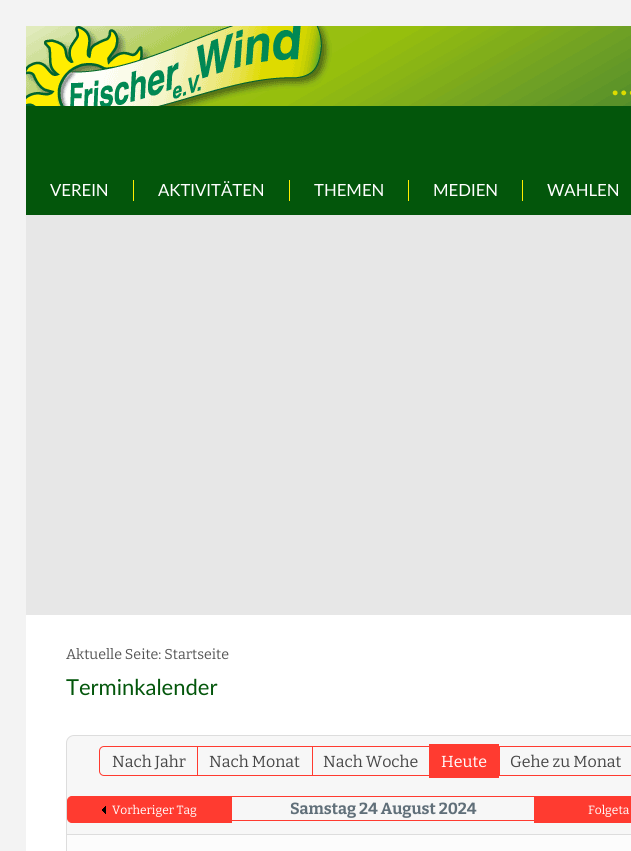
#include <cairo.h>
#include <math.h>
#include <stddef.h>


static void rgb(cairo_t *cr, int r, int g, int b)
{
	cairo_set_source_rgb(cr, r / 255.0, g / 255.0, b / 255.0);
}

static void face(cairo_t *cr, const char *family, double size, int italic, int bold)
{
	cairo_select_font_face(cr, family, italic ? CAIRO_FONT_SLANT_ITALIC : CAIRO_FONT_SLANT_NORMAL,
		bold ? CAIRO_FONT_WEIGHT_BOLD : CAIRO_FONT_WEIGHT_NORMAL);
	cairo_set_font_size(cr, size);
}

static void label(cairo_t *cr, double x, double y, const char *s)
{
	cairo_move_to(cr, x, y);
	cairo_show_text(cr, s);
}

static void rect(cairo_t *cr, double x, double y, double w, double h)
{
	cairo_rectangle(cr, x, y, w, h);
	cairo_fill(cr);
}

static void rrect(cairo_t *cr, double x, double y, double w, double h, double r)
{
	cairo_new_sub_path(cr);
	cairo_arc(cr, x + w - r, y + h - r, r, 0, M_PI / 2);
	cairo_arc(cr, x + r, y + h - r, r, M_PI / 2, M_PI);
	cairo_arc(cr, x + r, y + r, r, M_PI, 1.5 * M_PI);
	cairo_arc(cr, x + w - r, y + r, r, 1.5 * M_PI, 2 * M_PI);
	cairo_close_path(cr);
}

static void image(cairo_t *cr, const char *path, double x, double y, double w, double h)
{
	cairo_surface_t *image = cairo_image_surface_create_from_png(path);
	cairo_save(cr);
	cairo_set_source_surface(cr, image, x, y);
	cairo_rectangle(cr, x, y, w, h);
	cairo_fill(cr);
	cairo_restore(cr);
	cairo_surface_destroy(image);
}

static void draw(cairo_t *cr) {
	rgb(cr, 243, 243, 243);
	cairo_paint(cr);
	rgb(cr, 3, 86, 11);
	rect(cr, 26, 106, 605, 109);
	image(cr, "image0.png", 26, 26, 605, 80);
	face(cr, "Lato", 16.75, 0, 0);
	rgb(cr, 255, 255, 255);
	label(cr, 50, 196, "VEREIN");
	rgb(cr, 255, 237, 0);
	rect(cr, 133, 180, 1, 21);
	rgb(cr, 255, 255, 255);
	label(cr, 158, 196, "AKTIVITÄTEN");
	rgb(cr, 255, 237, 0);
	rect(cr, 289, 180, 1, 21);
	rgb(cr, 255, 255, 255);
	label(cr, 314, 196, "THEMEN");
	rgb(cr, 255, 237, 0);
	rect(cr, 408, 180, 1, 21);
	rgb(cr, 255, 255, 255);
	label(cr, 433, 196, "MEDIEN");
	rgb(cr, 255, 237, 0);
	rect(cr, 522, 180, 1, 21);
	rgb(cr, 255, 255, 255);
	label(cr, 547, 196, "WAHLEN");
	rgb(cr, 231, 231, 231);
	rect(cr, 26, 215, 605, 400);
	rgb(cr, 255, 255, 255);
	rect(cr, 26, 615, 605, 236);
	face(cr, "Bitter", 14.25, 0, 0);
	rgb(cr, 85, 85, 85);
	label(cr, 66, 659, "Aktuelle Seite: Startseite");
	face(cr, "Lato", 22, 0, 0);
	rgb(cr, 3, 86, 11);
	label(cr, 66, 695, "Terminkalender");
	rgb(cr, 247, 247, 247);
	rrect(cr, 66.5, 735.5, 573, 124, 7.5);
	cairo_fill_preserve(cr);
	rgb(cr, 221, 221, 221);
	cairo_set_line_width(cr, 1);
	cairo_stroke(cr);
	cairo_new_path(cr);
	cairo_move_to(cr, 104, 746.5);
	cairo_line_to(cr, 197.5, 746.5);
	cairo_line_to(cr, 197.5, 775.5);
	cairo_line_to(cr, 104, 775.5);
	cairo_curve_to(cr, 101.5, 775.5, 99.5, 773.5, 99.5, 771);
	cairo_line_to(cr, 99.5, 751);
	cairo_curve_to(cr, 99.5, 748.5, 101.5, 746.5, 104, 746.5);
	cairo_close_path(cr);
	rgb(cr, 255, 59, 48);
	cairo_stroke(cr);
	face(cr, "Bitter", 16, 0, 0);
	rgb(cr, 71, 71, 71);
	label(cr, 112, 767, "Nach Jahr");
	rgb(cr, 255, 59, 48);
	rect(cr, 197, 746, 116, 1);
	rect(cr, 312, 746, 1, 30);
	rect(cr, 197, 775, 234, 1);
	rgb(cr, 71, 71, 71);
	label(cr, 209, 767, "Nach Monat");
	rgb(cr, 255, 59, 48);
	rect(cr, 311, 746, 120, 1);
	rgb(cr, 71, 71, 71);
	label(cr, 323, 767, "Nach Woche");
	rgb(cr, 255, 59, 48);
	rect(cr, 499, 746, 1, 30);
	rect(cr, 429, 744, 70, 34);
	rgb(cr, 255, 255, 255);
	label(cr, 441, 767, "Heute");
	rgb(cr, 255, 59, 48);
	cairo_set_fill_rule(cr, CAIRO_FILL_RULE_EVEN_ODD);
	cairo_new_path(cr);
	cairo_move_to(cr, 498, 746);
	cairo_line_to(cr, 630, 746);
	cairo_curve_to(cr, 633, 746, 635, 748, 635, 751);
	cairo_line_to(cr, 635, 771);
	cairo_curve_to(cr, 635, 774, 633, 776, 630, 776);
	cairo_line_to(cr, 498, 776);
	cairo_close_path(cr);
	cairo_move_to(cr, 498, 747);
	cairo_line_to(cr, 630, 747);
	cairo_curve_to(cr, 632, 747, 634, 749, 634, 751);
	cairo_line_to(cr, 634, 771);
	cairo_curve_to(cr, 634, 773, 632, 775, 630, 775);
	cairo_line_to(cr, 498, 775);
	cairo_close_path(cr);
	cairo_fill(cr);
	rgb(cr, 71, 71, 71);
	label(cr, 510, 767, "Gehe zu Monat");
	rgb(cr, 255, 59, 48);
	cairo_new_path(cr);
	cairo_move_to(cr, 72, 796.5);
	cairo_line_to(cr, 231.5, 796.5);
	cairo_line_to(cr, 231.5, 822.5);
	cairo_line_to(cr, 72, 822.5);
	cairo_curve_to(cr, 69.5, 822.5, 67.5, 820.5, 67.5, 818);
	cairo_line_to(cr, 67.5, 801);
	cairo_curve_to(cr, 67.5, 798.5, 69.5, 796.5, 72, 796.5);
	cairo_close_path(cr);
	cairo_fill_preserve(cr);
	cairo_stroke(cr);
	image(cr, "image1.png", 102, 806, 4, 8);
	face(cr, "Bitter", 12, 0, 0);
	rgb(cr, 255, 255, 255);
	label(cr, 112, 814, "Vorheriger Tag");
	rgb(cr, 255, 59, 48);
	rect(cr, 232, 796, 302, 1);
	rect(cr, 232, 820, 302, 1);
	face(cr, "Bitter", 16, 0, 1);
	rgb(cr, 96, 111, 121);
	label(cr, 290, 814, "Samstag 24 August 2024");
	rgb(cr, 255, 59, 48);
	rect(cr, 534, 796, 97, 27);
	face(cr, "Bitter", 12, 0, 0);
	rgb(cr, 255, 255, 255);
	label(cr, 588, 814, "Folgeta");
	rgb(cr, 252, 252, 252);
	cairo_rectangle(cr, 66.5, 834.5, 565, 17);
	cairo_fill_preserve(cr);
	rgb(cr, 221, 221, 221);
	cairo_stroke(cr);
}

int main(void) {
	cairo_surface_t *surface = cairo_image_surface_create(CAIRO_FORMAT_RGB24, 631, 851);
	cairo_t *cr = cairo_create(surface);
	cairo_font_options_t *options = cairo_font_options_create();
	cairo_font_options_set_hint_metrics(options, CAIRO_HINT_METRICS_OFF);
	cairo_font_options_set_hint_style(options, CAIRO_HINT_STYLE_NONE);
	cairo_set_font_options(cr, options);
	cairo_set_miter_limit(cr, 4);
	draw(cr);
	cairo_surface_write_to_png(surface, "render.png");
	cairo_font_options_destroy(options);
	cairo_destroy(cr);
	cairo_surface_destroy(surface);
	return 0;
}
